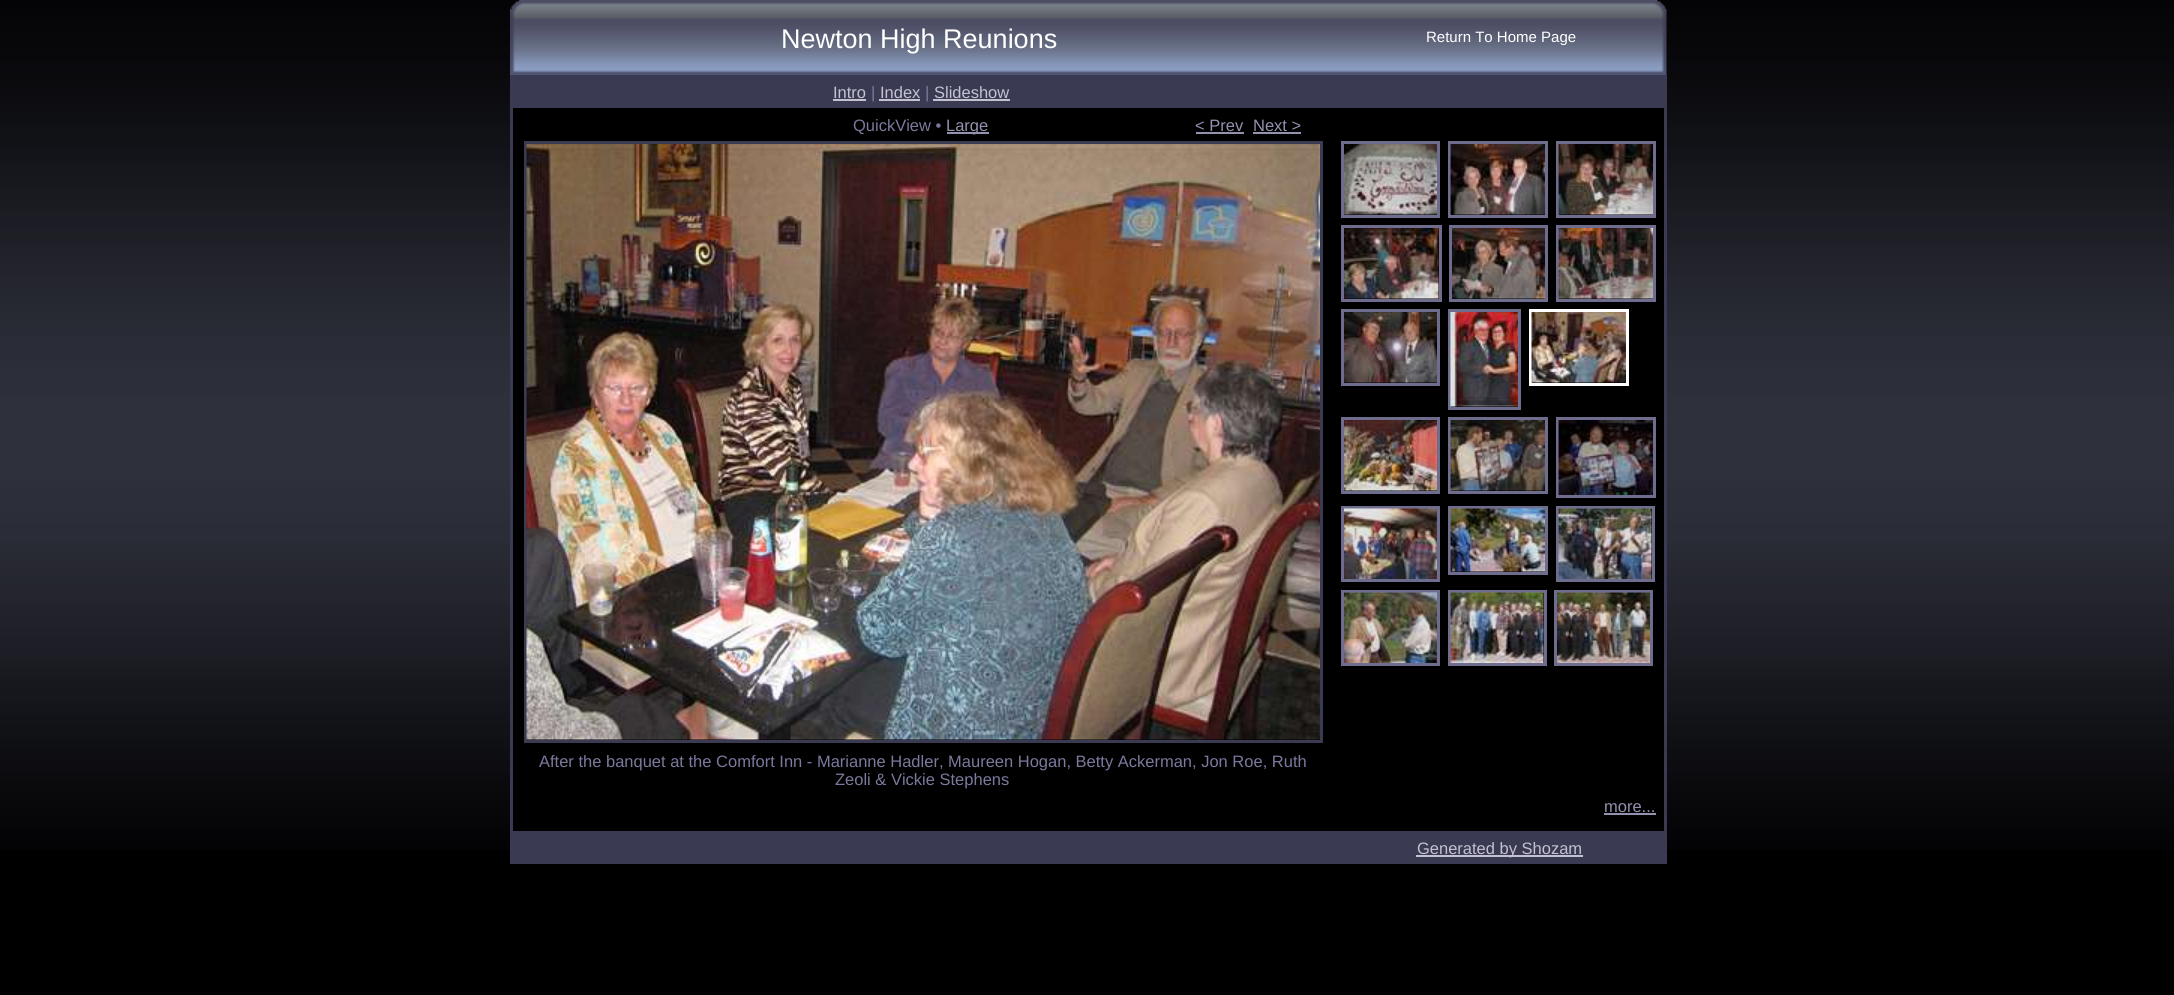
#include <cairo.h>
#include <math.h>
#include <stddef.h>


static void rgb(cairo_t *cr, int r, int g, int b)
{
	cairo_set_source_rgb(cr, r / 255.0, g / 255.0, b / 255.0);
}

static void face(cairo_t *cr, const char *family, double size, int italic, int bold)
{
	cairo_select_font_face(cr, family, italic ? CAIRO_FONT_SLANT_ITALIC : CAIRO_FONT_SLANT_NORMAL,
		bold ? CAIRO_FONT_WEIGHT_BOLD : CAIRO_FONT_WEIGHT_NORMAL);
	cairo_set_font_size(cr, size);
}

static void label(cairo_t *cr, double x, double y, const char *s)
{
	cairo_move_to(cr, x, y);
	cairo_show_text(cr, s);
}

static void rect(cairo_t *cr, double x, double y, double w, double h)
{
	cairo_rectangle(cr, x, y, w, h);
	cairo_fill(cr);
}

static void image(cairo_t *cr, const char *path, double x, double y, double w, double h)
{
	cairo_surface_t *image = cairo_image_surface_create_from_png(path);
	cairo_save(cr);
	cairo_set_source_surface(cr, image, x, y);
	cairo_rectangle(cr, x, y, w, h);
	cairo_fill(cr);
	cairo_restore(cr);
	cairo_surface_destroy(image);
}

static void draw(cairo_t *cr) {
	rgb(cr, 0, 0, 0);
	cairo_paint(cr);
	image(cr, "image0.png", 0, 0, 2174, 850);
	image(cr, "image1.png", 510, 0, 1157, 75);
	face(cr, "Liberation Sans", 27, 0, 0);
	rgb(cr, 255, 255, 255);
	label(cr, 781, 48, "Newton High Reunions");
	face(cr, "Liberation Sans", 15, 0, 0);
	label(cr, 1426, 42, "Return To Home Page");
	rgb(cr, 0, 0, 0);
	rect(cr, 513, 108, 1151, 723);
	rgb(cr, 58, 58, 82);
	rect(cr, 1664, 75, 3, 789);
	rect(cr, 510, 75, 3, 789);
	rect(cr, 513, 75, 1151, 33);
	face(cr, "Liberation Sans", 16.5, 0, 0);
	rgb(cr, 194, 194, 211);
	label(cr, 833, 98, "Intro");
	rect(cr, 833, 99, 33, 2);
	rgb(cr, 123, 121, 157);
	label(cr, 871, 98, "|");
	rgb(cr, 194, 194, 211);
	label(cr, 880, 98, "Index");
	rect(cr, 879, 99, 41, 2);
	rgb(cr, 123, 121, 157);
	label(cr, 925, 98, "|");
	rgb(cr, 194, 194, 211);
	label(cr, 934, 98, "Slideshow");
	rect(cr, 933, 99, 77, 2);
	rgb(cr, 123, 121, 157);
	label(cr, 853, 131, "QuickView •");
	rgb(cr, 147, 146, 175);
	rect(cr, 947, 132, 42, 2);
	label(cr, 946, 131, "Large");
	label(cr, 1195, 131, "< Prev");
	rect(cr, 1196, 132, 48, 2);
	label(cr, 1253, 131, "Next >");
	rect(cr, 1253, 132, 48, 2);
	cairo_rectangle(cr, 525.5, 142.5, 796, 599);
	rgb(cr, 58, 58, 82);
	cairo_set_line_width(cr, 3);
	cairo_stroke(cr);
	image(cr, "image2.png", 526, 144, 794, 596);
	cairo_rectangle(cr, 1342.5, 142.5, 96, 74);
	rgb(cr, 111, 109, 141);
	cairo_stroke(cr);
	cairo_rectangle(cr, 1449.5, 142.5, 97, 74);
	cairo_stroke(cr);
	cairo_rectangle(cr, 1557.5, 142.5, 97, 74);
	cairo_stroke(cr);
	image(cr, "image3.png", 1344, 144, 93, 71);
	image(cr, "image4.png", 1450, 144, 95, 71);
	image(cr, "image5.png", 1558, 144, 95, 71);
	cairo_rectangle(cr, 1342.5, 226.5, 98, 74);
	cairo_stroke(cr);
	cairo_rectangle(cr, 1450.5, 226.5, 96, 74);
	cairo_stroke(cr);
	cairo_rectangle(cr, 1557.5, 226.5, 97, 74);
	cairo_stroke(cr);
	image(cr, "image6.png", 1344, 228, 95, 71);
	image(cr, "image7.png", 1452, 228, 93, 71);
	image(cr, "image8.png", 1558, 228, 95, 71);
	cairo_rectangle(cr, 1342.5, 310.5, 96, 74);
	cairo_stroke(cr);
	cairo_rectangle(cr, 1449.5, 310.5, 70, 98);
	cairo_stroke(cr);
	cairo_rectangle(cr, 1530.5, 310.5, 97, 74);
	rgb(cr, 255, 255, 255);
	cairo_stroke(cr);
	image(cr, "image9.png", 1344, 312, 93, 71);
	image(cr, "image10.png", 1450, 312, 68, 95);
	image(cr, "image11.png", 1531, 312, 95, 71);
	cairo_rectangle(cr, 1342.5, 418.5, 96, 74);
	rgb(cr, 111, 109, 141);
	cairo_stroke(cr);
	cairo_rectangle(cr, 1449.5, 418.5, 97, 74);
	cairo_stroke(cr);
	cairo_rectangle(cr, 1557.5, 418.5, 97, 78);
	cairo_stroke(cr);
	image(cr, "image12.png", 1344, 420, 93, 71);
	image(cr, "image13.png", 1450, 420, 95, 71);
	image(cr, "image14.png", 1558, 420, 95, 75);
	cairo_rectangle(cr, 1342.5, 507.5, 96, 73);
	cairo_stroke(cr);
	cairo_rectangle(cr, 1449.5, 507.5, 97, 66);
	cairo_stroke(cr);
	cairo_rectangle(cr, 1557.5, 507.5, 96, 73);
	cairo_stroke(cr);
	image(cr, "image15.png", 1344, 508, 93, 71);
	image(cr, "image16.png", 1450, 508, 95, 64);
	image(cr, "image17.png", 1558, 508, 94, 71);
	cairo_rectangle(cr, 1342.5, 591.5, 96, 73);
	cairo_stroke(cr);
	cairo_rectangle(cr, 1449.5, 591.5, 96, 73);
	cairo_stroke(cr);
	cairo_rectangle(cr, 1555.5, 591.5, 96, 73);
	cairo_stroke(cr);
	image(cr, "image18.png", 1344, 592, 93, 71);
	image(cr, "image19.png", 1450, 592, 94, 71);
	image(cr, "image20.png", 1557, 592, 93, 71);
	rgb(cr, 123, 121, 157);
	label(cr, 539, 767, "After the banquet at the Comfort Inn - Marianne Hadler, Maureen Hogan, Betty Ackerman, Jon Roe, Ruth");
	label(cr, 835, 785, "Zeoli & Vickie Stephens");
	rgb(cr, 147, 146, 175);
	label(cr, 1604, 812, "more...");
	rect(cr, 1604, 813, 52, 2);
	rgb(cr, 58, 58, 82);
	rect(cr, 513, 831, 1151, 33);
	rgb(cr, 194, 194, 211);
	rect(cr, 1416, 855, 167, 2);
	label(cr, 1417, 854, "Generated by Shozam");
}

int main(void) {
	cairo_surface_t *surface = cairo_image_surface_create(CAIRO_FORMAT_RGB24, 2174, 995);
	cairo_t *cr = cairo_create(surface);
	cairo_font_options_t *options = cairo_font_options_create();
	cairo_font_options_set_hint_metrics(options, CAIRO_HINT_METRICS_OFF);
	cairo_font_options_set_hint_style(options, CAIRO_HINT_STYLE_NONE);
	cairo_set_font_options(cr, options);
	cairo_set_miter_limit(cr, 4);
	draw(cr);
	cairo_surface_write_to_png(surface, "render.png");
	cairo_font_options_destroy(options);
	cairo_destroy(cr);
	cairo_surface_destroy(surface);
	return 0;
}
